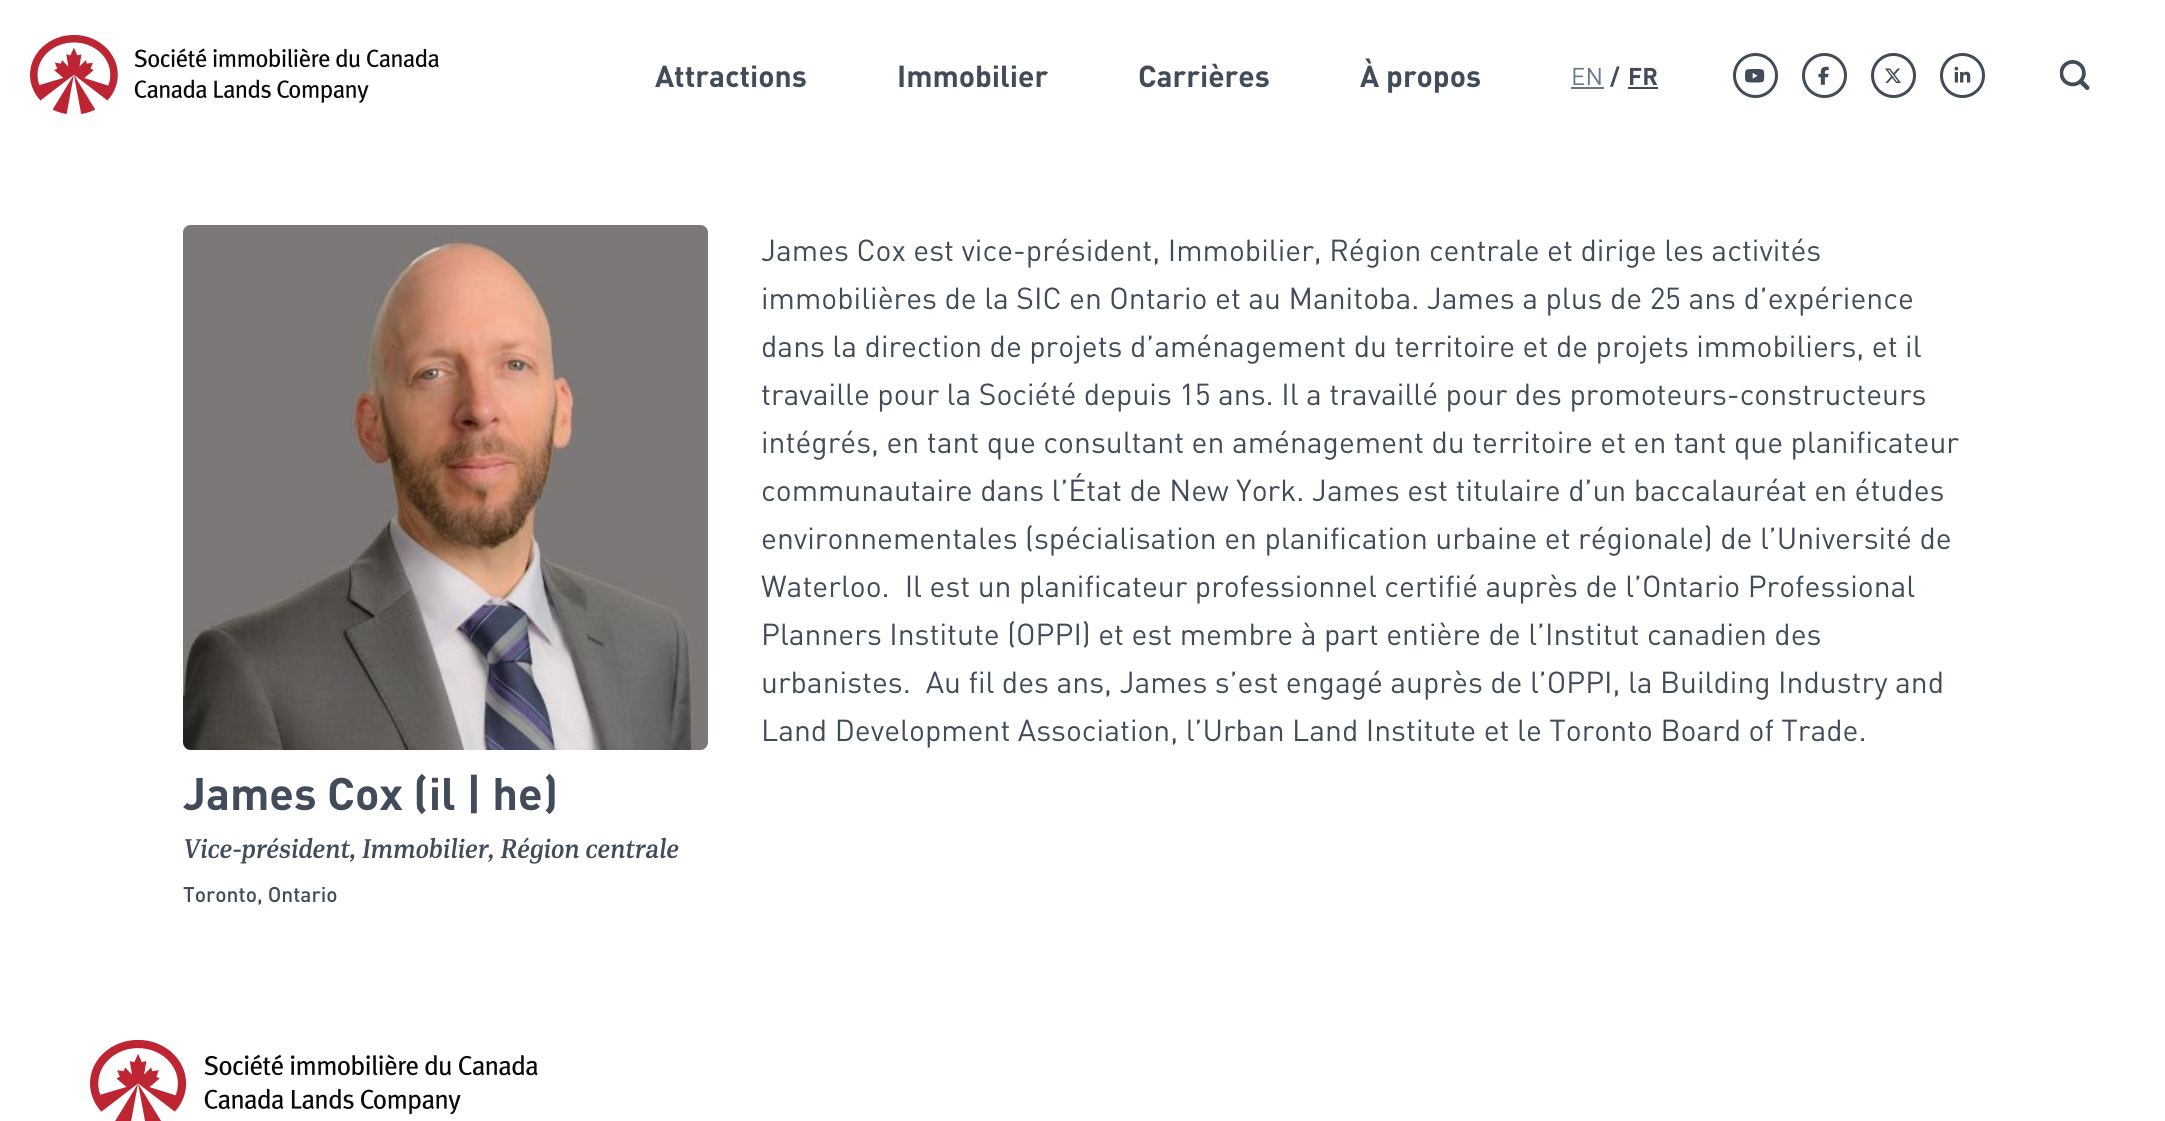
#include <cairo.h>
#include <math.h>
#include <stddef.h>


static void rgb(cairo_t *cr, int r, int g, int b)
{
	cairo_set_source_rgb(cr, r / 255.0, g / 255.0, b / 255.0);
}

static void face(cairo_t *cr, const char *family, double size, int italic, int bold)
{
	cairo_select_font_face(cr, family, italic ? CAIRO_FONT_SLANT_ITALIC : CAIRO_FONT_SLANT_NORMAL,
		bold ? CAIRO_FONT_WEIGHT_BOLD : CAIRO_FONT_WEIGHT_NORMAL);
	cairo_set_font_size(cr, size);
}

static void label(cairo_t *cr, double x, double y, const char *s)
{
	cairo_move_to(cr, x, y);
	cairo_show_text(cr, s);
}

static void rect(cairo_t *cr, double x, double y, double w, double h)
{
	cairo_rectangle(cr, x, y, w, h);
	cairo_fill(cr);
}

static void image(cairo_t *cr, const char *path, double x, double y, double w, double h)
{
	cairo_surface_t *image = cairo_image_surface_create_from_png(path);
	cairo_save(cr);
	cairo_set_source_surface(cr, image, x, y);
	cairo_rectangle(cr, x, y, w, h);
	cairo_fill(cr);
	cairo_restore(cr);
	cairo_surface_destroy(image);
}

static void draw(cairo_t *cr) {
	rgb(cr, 255, 255, 255);
	cairo_paint(cr);
	image(cr, "image0.png", 30, 34, 409, 80);
	face(cr, "DIN", 30, 0, 1);
	rgb(cr, 65, 75, 89);
	label(cr, 655, 87, "Attractions");
	label(cr, 897, 87, "Immobilier");
	label(cr, 1138, 87, "Carrières");
	label(cr, 1360, 87, "À propos");
	face(cr, "DIN", 24, 0, 0);
	rgb(cr, 106, 119, 138);
	label(cr, 1571, 85, "EN");
	rect(cr, 1571, 87, 33, 2);
	face(cr, "DIN", 24, 0, 1);
	rgb(cr, 65, 75, 89);
	label(cr, 1610, 85, "/");
	label(cr, 1628, 85, "FR");
	rect(cr, 1628, 87, 30, 2);
	cairo_new_path(cr);
	cairo_arc(cr, 1755.5, 75.5, 21, 0, 2 * M_PI);
	cairo_set_line_width(cr, 3);
	cairo_stroke(cr);
	image(cr, "image1.png", 1745, 69, 20, 14);
	cairo_arc(cr, 1824.5, 75.5, 21, 0, 2 * M_PI);
	cairo_stroke(cr);
	image(cr, "image2.png", 1818, 66, 11, 19);
	cairo_arc(cr, 1893.5, 75.5, 21, 0, 2 * M_PI);
	cairo_stroke(cr);
	image(cr, "image3.png", 1885, 68, 16, 16);
	cairo_arc(cr, 1962.5, 75.5, 21, 0, 2 * M_PI);
	cairo_stroke(cr);
	image(cr, "image4.png", 1954, 66, 17, 17);
	image(cr, "image5.png", 2060, 60, 30, 30);
	face(cr, "DIN", 30, 0, 0);
	label(cr, 761, 261, "James Cox est vice-président, Immobilier, Région centrale et dirige les activités");
	label(cr, 761, 309, "immobilières de la SIC en Ontario et au Manitoba. James a plus de 25 ans d’expérience");
	label(cr, 761, 357, "dans la direction de projets d’aménagement du territoire et de projets immobiliers, et il");
	label(cr, 761, 405, "travaille pour la Société depuis 15 ans. Il a travaillé pour des promoteurs-constructeurs");
	label(cr, 761, 453, "intégrés, en tant que consultant en aménagement du territoire et en tant que planificateur");
	label(cr, 761, 501, "communautaire dans l’État de New York. James est titulaire d’un baccalauréat en études");
	label(cr, 761, 549, "environnementales (spécialisation en planification urbaine et régionale) de l’Université de");
	label(cr, 761, 597, "Waterloo.  Il est un planificateur professionnel certifié auprès de l’Ontario Professional");
	label(cr, 761, 645, "Planners Institute (OPPI) et est membre à part entière de l’Institut canadien des");
	label(cr, 761, 693, "urbanistes.  Au fil des ans, James s’est engagé auprès de l’OPPI, la Building Industry and");
	label(cr, 761, 741, "Land Development Association, l’Urban Land Institute et le Toronto Board of Trade.");
	image(cr, "image6.png", 183, 225, 525, 525);
	face(cr, "DIN", 45, 0, 1);
	label(cr, 183, 810, "James Cox (il | he)");
	image(cr, "image7.png", 185, 837, 494, 27);
	face(cr, "DIN Medium", 21, 0, 0);
	label(cr, 183, 902, "Toronto, Ontario");
	image(cr, "image8.png", 90, 1040, 448, 81);
}

int main(void) {
	cairo_surface_t *surface = cairo_image_surface_create(CAIRO_FORMAT_RGB24, 2165, 1121);
	cairo_t *cr = cairo_create(surface);
	cairo_font_options_t *options = cairo_font_options_create();
	cairo_font_options_set_hint_metrics(options, CAIRO_HINT_METRICS_OFF);
	cairo_font_options_set_hint_style(options, CAIRO_HINT_STYLE_NONE);
	cairo_set_font_options(cr, options);
	cairo_set_miter_limit(cr, 4);
	draw(cr);
	cairo_surface_write_to_png(surface, "render.png");
	cairo_font_options_destroy(options);
	cairo_destroy(cr);
	cairo_surface_destroy(surface);
	return 0;
}
